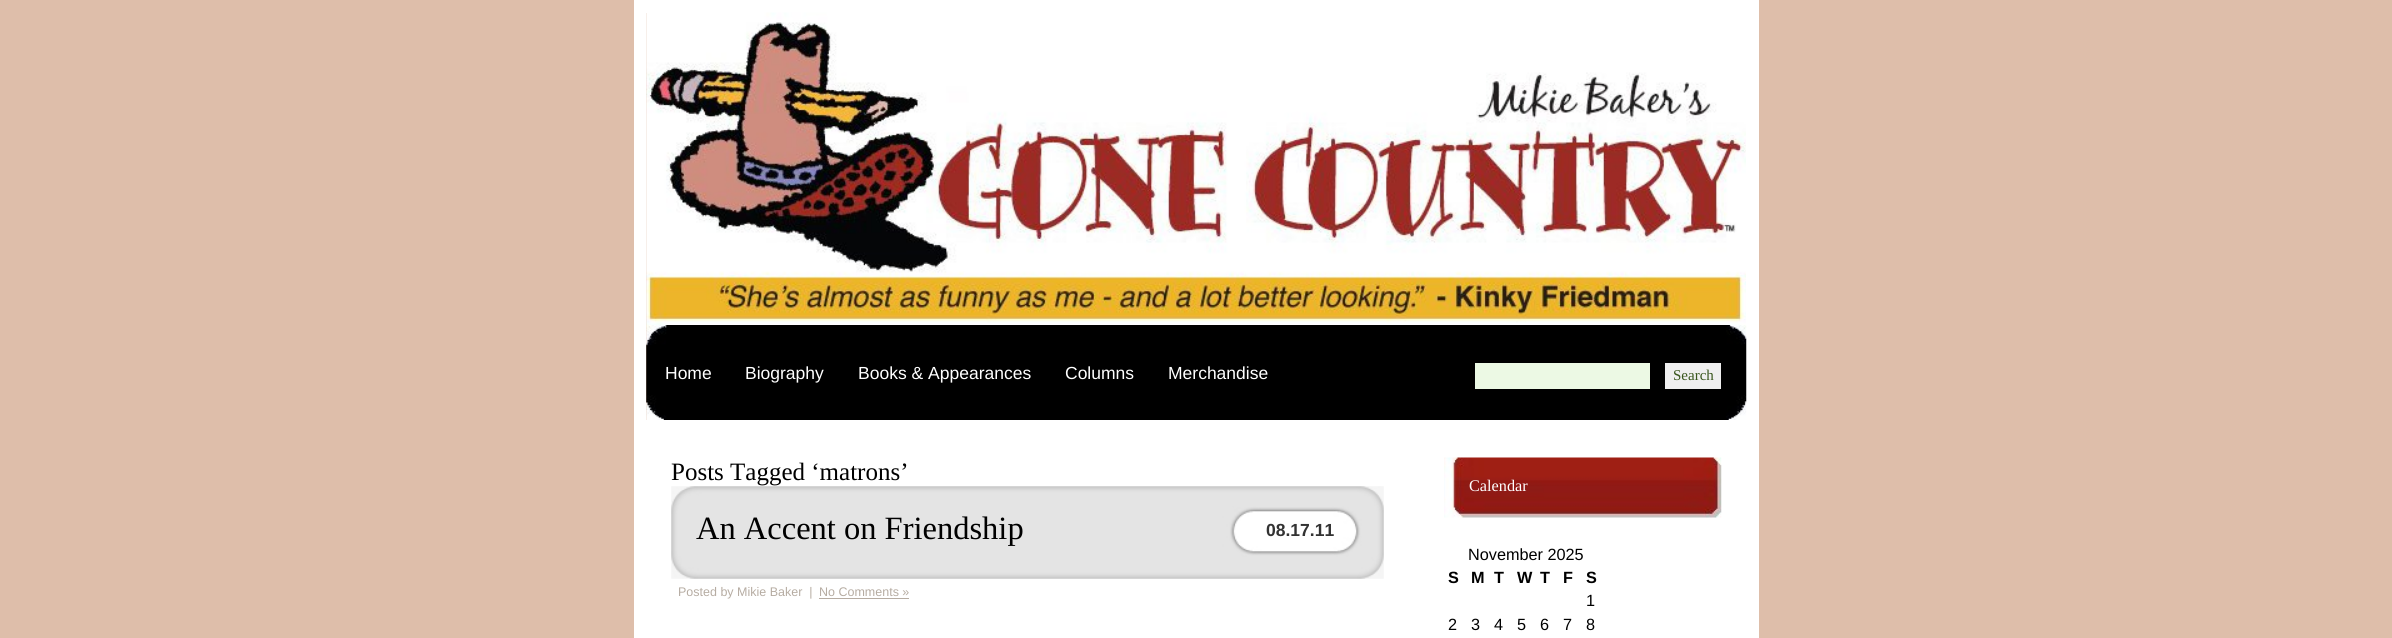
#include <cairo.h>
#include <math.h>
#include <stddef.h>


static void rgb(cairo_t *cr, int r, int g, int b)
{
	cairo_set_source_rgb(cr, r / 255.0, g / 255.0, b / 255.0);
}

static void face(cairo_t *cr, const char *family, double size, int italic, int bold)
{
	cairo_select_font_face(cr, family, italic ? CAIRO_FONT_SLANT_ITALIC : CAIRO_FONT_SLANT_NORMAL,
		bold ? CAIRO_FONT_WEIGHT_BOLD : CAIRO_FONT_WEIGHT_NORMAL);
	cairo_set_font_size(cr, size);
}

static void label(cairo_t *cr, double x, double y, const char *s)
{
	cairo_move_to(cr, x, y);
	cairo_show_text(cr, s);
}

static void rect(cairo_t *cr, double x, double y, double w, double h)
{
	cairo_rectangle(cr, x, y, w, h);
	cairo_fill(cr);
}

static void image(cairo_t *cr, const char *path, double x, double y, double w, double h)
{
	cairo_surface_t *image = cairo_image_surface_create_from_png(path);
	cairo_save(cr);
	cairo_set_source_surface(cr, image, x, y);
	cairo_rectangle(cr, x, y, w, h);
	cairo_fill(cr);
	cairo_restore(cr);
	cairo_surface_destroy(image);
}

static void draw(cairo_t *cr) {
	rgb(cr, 222, 190, 170);
	cairo_paint(cr);
	rgb(cr, 255, 255, 255);
	rect(cr, 646, 0, 1100, 13);
	rect(cr, 1746, 0, 13, 420);
	rect(cr, 634, 0, 12, 420);
	image(cr, "image0.png", 646, 12, 1100, 313);
	image(cr, "image1.png", 646, 325, 1101, 95);
	face(cr, "Liberation Sans", 17.5, 0, 0);
	label(cr, 665, 379, "Home");
	label(cr, 745, 379, "Biography");
	label(cr, 858, 379, "Books & Appearances");
	label(cr, 1065, 379, "Columns");
	label(cr, 1168, 379, "Merchandise");
	rgb(cr, 236, 249, 228);
	rect(cr, 1475, 363, 175, 26);
	rgb(cr, 239, 239, 239);
	rect(cr, 1665, 363, 56, 26);
	face(cr, "Liberation Serif", 15, 0, 0);
	rgb(cr, 57, 86, 29);
	label(cr, 1673, 380, "Search");
	rgb(cr, 255, 255, 255);
	rect(cr, 634, 420, 1125, 218);
	face(cr, "Liberation Serif", 25, 0, 0);
	rgb(cr, 0, 0, 0);
	label(cr, 671, 480, "Posts Tagged ‘matrons’");
	image(cr, "image2.png", 671, 486, 713, 93);
	face(cr, "Liberation Serif", 32.5, 0, 0);
	label(cr, 696, 539, "An Accent on Friendship");
	face(cr, "Liberation Sans", 17.5, 0, 1);
	rgb(cr, 51, 51, 51);
	label(cr, 1266, 536, "08.17.11");
	face(cr, "Liberation Sans", 12.5, 0, 0);
	rgb(cr, 182, 172, 162);
	label(cr, 678, 596, "Posted by Mikie Baker  |");
	label(cr, 819, 596, "No Comments »");
	rect(cr, 819, 598, 90, 1);
	image(cr, "image3.png", 1444, 457, 278, 61);
	face(cr, "Liberation Serif", 16.25, 0, 0);
	rgb(cr, 255, 255, 255);
	label(cr, 1469, 491, "Calendar");
	face(cr, "Liberation Sans", 16.25, 0, 0);
	rgb(cr, 0, 0, 0);
	label(cr, 1468, 560, "November 2025");
	face(cr, "Liberation Sans", 16.25, 0, 1);
	label(cr, 1448, 583, "S");
	label(cr, 1471, 583, "M");
	label(cr, 1494, 583, "T");
	label(cr, 1517, 583, "W");
	label(cr, 1540, 583, "T");
	label(cr, 1563, 583, "F");
	label(cr, 1586, 583, "S");
	face(cr, "Liberation Sans", 16.25, 0, 0);
	label(cr, 1586, 606, "1");
	label(cr, 1448, 630, "2");
	label(cr, 1471, 630, "3");
	label(cr, 1494, 630, "4");
	label(cr, 1517, 630, "5");
	label(cr, 1540, 630, "6");
	label(cr, 1563, 630, "7");
	label(cr, 1586, 630, "8");
}

int main(void) {
	cairo_surface_t *surface = cairo_image_surface_create(CAIRO_FORMAT_RGB24, 2392, 638);
	cairo_t *cr = cairo_create(surface);
	cairo_font_options_t *options = cairo_font_options_create();
	cairo_font_options_set_hint_metrics(options, CAIRO_HINT_METRICS_OFF);
	cairo_font_options_set_hint_style(options, CAIRO_HINT_STYLE_NONE);
	cairo_set_font_options(cr, options);
	cairo_set_miter_limit(cr, 4);
	draw(cr);
	cairo_surface_write_to_png(surface, "render.png");
	cairo_font_options_destroy(options);
	cairo_destroy(cr);
	cairo_surface_destroy(surface);
	return 0;
}
